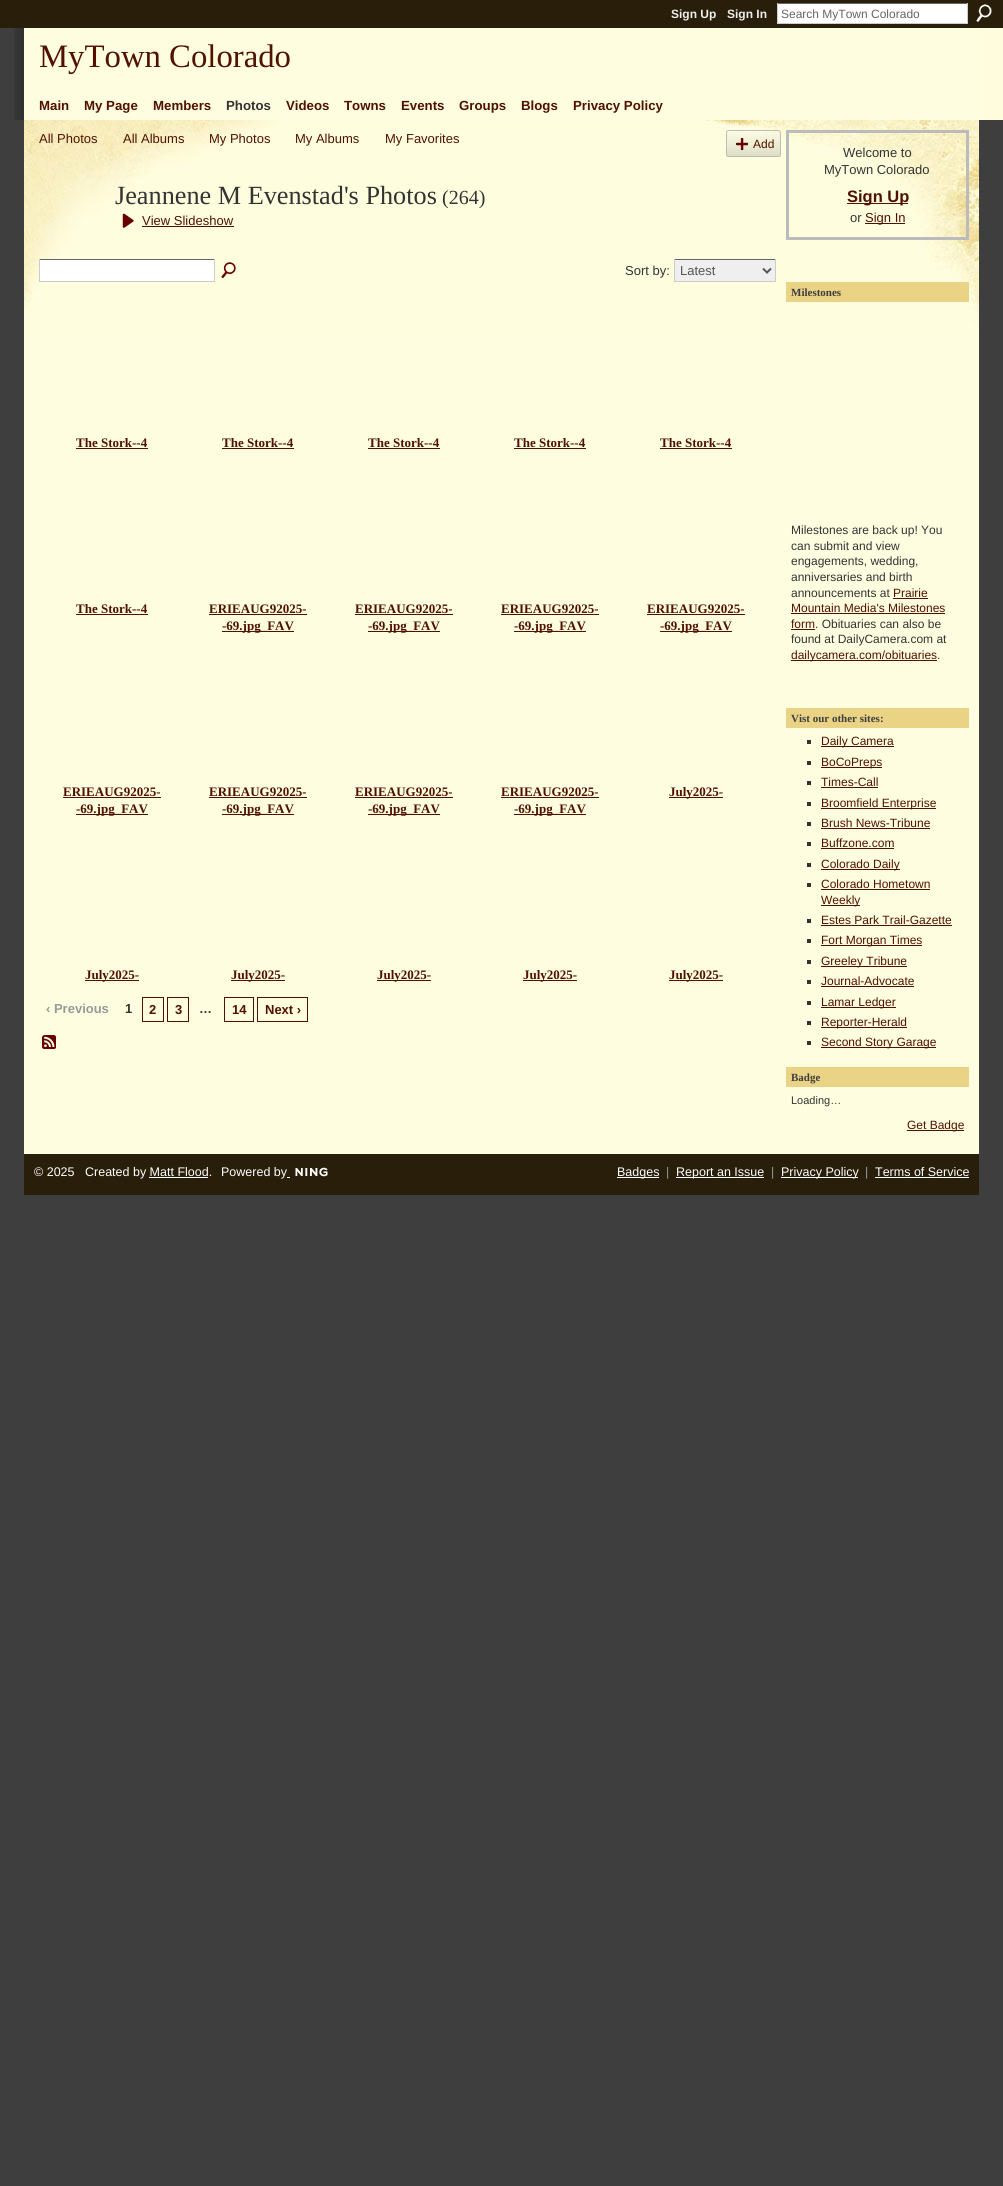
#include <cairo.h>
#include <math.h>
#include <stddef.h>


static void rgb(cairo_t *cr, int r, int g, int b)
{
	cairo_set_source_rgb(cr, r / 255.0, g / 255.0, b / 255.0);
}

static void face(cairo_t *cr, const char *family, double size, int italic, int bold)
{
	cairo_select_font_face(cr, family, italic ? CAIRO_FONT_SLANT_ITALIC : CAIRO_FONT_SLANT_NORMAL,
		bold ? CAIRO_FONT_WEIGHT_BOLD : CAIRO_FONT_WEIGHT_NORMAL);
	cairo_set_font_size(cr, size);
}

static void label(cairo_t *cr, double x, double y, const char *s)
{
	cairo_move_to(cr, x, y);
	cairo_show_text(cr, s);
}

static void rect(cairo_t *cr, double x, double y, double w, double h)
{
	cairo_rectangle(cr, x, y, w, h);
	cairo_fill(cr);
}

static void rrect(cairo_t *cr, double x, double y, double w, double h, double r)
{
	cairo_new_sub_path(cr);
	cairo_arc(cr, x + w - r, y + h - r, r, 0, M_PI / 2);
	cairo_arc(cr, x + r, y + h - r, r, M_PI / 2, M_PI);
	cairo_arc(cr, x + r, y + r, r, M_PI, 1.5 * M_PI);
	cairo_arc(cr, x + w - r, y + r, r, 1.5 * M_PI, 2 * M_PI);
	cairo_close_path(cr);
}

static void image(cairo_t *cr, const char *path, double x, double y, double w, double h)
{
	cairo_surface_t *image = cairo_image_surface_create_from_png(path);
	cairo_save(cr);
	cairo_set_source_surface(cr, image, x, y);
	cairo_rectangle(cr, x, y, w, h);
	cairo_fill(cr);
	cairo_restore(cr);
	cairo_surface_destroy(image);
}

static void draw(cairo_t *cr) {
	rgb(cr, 62, 62, 62);
	cairo_paint(cr);
	image(cr, "image0.png", 14, 28, 989, 92);
	rgb(cr, 41, 30, 9);
	rect(cr, 0, 0, 1003, 28);
	face(cr, "Liberation Sans", 12, 0, 1);
	rgb(cr, 238, 238, 238);
	label(cr, 671, 18, "Sign Up");
	label(cr, 727, 18, "Sign In");
	rgb(cr, 255, 255, 255);
	rect(cr, 778, 4, 189, 19);
	rgb(cr, 102, 102, 102);
	rect(cr, 777, 3, 191, 1);
	rgb(cr, 204, 204, 204);
	rect(cr, 967, 3, 1, 21);
	rect(cr, 777, 23, 191, 1);
	rect(cr, 777, 3, 1, 21);
	face(cr, "Liberation Sans", 12, 0, 0);
	rgb(cr, 102, 102, 102);
	label(cr, 781, 18, "Search MyTown Colorado");
	image(cr, "image1.png", 976, 4, 16, 18);
	rgb(cr, 255, 253, 223);
	rect(cr, 24, 28, 955, 1126);
	face(cr, "Liberation Serif", 32.75, 0, 0);
	rgb(cr, 80, 17, 0);
	label(cr, 39, 67, "MyTown Colorado");
	face(cr, "Liberation Sans", 13.25, 0, 1);
	label(cr, 39, 110, "Main");
	label(cr, 84, 110, "My Page");
	label(cr, 153, 110, "Members");
	rgb(cr, 51, 51, 51);
	label(cr, 226, 110, "Photos");
	rgb(cr, 80, 17, 0);
	label(cr, 286, 110, "Videos");
	label(cr, 344, 110, "Towns");
	label(cr, 401, 110, "Events");
	label(cr, 459, 110, "Groups");
	label(cr, 521, 110, "Blogs");
	label(cr, 573, 110, "Privacy Policy");
	image(cr, "image2.png", 24, 120, 955, 210);
	face(cr, "Liberation Sans", 13, 0, 0);
	label(cr, 39, 143, "All Photos");
	label(cr, 123, 143, "All Albums");
	label(cr, 209, 143, "My Photos");
	label(cr, 295, 143, "My Albums");
	label(cr, 385, 143, "My Favorites");
	image(cr, "image3.png", 726, 131, 55, 26);
	rrect(cr, 726.5, 130.5, 54, 26, 2.5);
	rgb(cr, 187, 187, 187);
	cairo_set_line_width(cr, 1);
	cairo_stroke(cr);
	image(cr, "image4.png", 736, 138, 12, 12);
	face(cr, "Liberation Sans", 12, 0, 0);
	rgb(cr, 80, 17, 0);
	label(cr, 753, 148, "Add");
	face(cr, "Liberation Serif", 26.25, 0, 0);
	rgb(cr, 51, 51, 51);
	label(cr, 115, 204, "Jeannene M Evenstad's Photos");
	face(cr, "Liberation Serif", 20, 0, 0);
	label(cr, 442, 204, "(264)");
	image(cr, "image5.png", 122, 213, 12, 15);
	face(cr, "Liberation Sans", 13, 0, 0);
	rgb(cr, 80, 17, 0);
	label(cr, 142, 225, "View Slideshow");
	rect(cr, 142, 226, 92, 1);
	rgb(cr, 255, 255, 255);
	rect(cr, 40, 260, 174, 21);
	rgb(cr, 102, 102, 102);
	rect(cr, 39, 259, 176, 1);
	rgb(cr, 204, 204, 204);
	rect(cr, 214, 259, 1, 23);
	rect(cr, 39, 281, 176, 1);
	rect(cr, 39, 259, 1, 23);
	image(cr, "image6.png", 221, 262, 15, 16);
	rgb(cr, 51, 51, 51);
	label(cr, 625, 275, "Sort by:");
	rgb(cr, 239, 239, 239);
	rect(cr, 675, 260, 100, 21);
	rgb(cr, 102, 102, 102);
	rect(cr, 674, 259, 102, 1);
	rgb(cr, 204, 204, 204);
	rect(cr, 775, 259, 1, 23);
	rect(cr, 674, 281, 102, 1);
	rect(cr, 674, 259, 1, 23);
	cairo_new_path(cr);
	cairo_move_to(cr, 763, 268.5);
	cairo_line_to(cr, 767, 272.5);
	cairo_line_to(cr, 771, 268.5);
	rgb(cr, 85, 85, 85);
	cairo_set_line_width(cr, 2);
	cairo_stroke(cr);
	label(cr, 680, 275, "Latest");
	face(cr, "Liberation Serif", 13, 0, 1);
	rgb(cr, 80, 17, 0);
	label(cr, 76, 447, "The Stork--4");
	rect(cr, 76, 448, 72, 1);
	label(cr, 222, 447, "The Stork--4");
	rect(cr, 222, 448, 72, 1);
	label(cr, 368, 447, "The Stork--4");
	rect(cr, 368, 448, 72, 1);
	label(cr, 514, 447, "The Stork--4");
	rect(cr, 514, 448, 72, 1);
	label(cr, 660, 447, "The Stork--4");
	rect(cr, 660, 448, 72, 1);
	label(cr, 76, 613, "The Stork--4");
	rect(cr, 76, 614, 72, 1);
	label(cr, 209, 613, "ERIEAUG92025-");
	rect(cr, 209, 614, 98, 1);
	rect(cr, 222, 631, 72, 1);
	label(cr, 222, 630, "-69.jpg_FAV");
	label(cr, 355, 613, "ERIEAUG92025-");
	rect(cr, 355, 614, 98, 1);
	rect(cr, 368, 631, 72, 1);
	label(cr, 368, 630, "-69.jpg_FAV");
	label(cr, 501, 613, "ERIEAUG92025-");
	rect(cr, 501, 614, 98, 1);
	rect(cr, 514, 631, 72, 1);
	label(cr, 514, 630, "-69.jpg_FAV");
	label(cr, 647, 613, "ERIEAUG92025-");
	rect(cr, 647, 614, 98, 1);
	rect(cr, 660, 631, 72, 1);
	label(cr, 660, 630, "-69.jpg_FAV");
	label(cr, 63, 796, "ERIEAUG92025-");
	rect(cr, 63, 797, 98, 1);
	rect(cr, 76, 814, 72, 1);
	label(cr, 76, 813, "-69.jpg_FAV");
	label(cr, 209, 796, "ERIEAUG92025-");
	rect(cr, 209, 797, 98, 1);
	rect(cr, 222, 814, 72, 1);
	label(cr, 222, 813, "-69.jpg_FAV");
	label(cr, 355, 796, "ERIEAUG92025-");
	rect(cr, 355, 797, 98, 1);
	rect(cr, 368, 814, 72, 1);
	label(cr, 368, 813, "-69.jpg_FAV");
	label(cr, 501, 796, "ERIEAUG92025-");
	rect(cr, 501, 797, 98, 1);
	rect(cr, 514, 814, 72, 1);
	label(cr, 514, 813, "-69.jpg_FAV");
	rect(cr, 669, 797, 54, 1);
	label(cr, 669, 796, "July2025-");
	rect(cr, 85, 980, 54, 1);
	label(cr, 85, 979, "July2025-");
	rect(cr, 231, 980, 54, 1);
	label(cr, 231, 979, "July2025-");
	rect(cr, 377, 980, 54, 1);
	label(cr, 377, 979, "July2025-");
	rect(cr, 523, 980, 54, 1);
	label(cr, 523, 979, "July2025-");
	rect(cr, 669, 980, 54, 1);
	label(cr, 669, 979, "July2025-");
	face(cr, "Liberation Sans", 13, 0, 1);
	rgb(cr, 153, 153, 153);
	label(cr, 46, 1013, "‹ Previous");
	rgb(cr, 51, 51, 51);
	label(cr, 125, 1013, "1");
	cairo_rectangle(cr, 142.5, 997.5, 21, 24);
	rgb(cr, 80, 17, 0);
	cairo_set_line_width(cr, 1);
	cairo_stroke(cr);
	label(cr, 149, 1014, "2");
	cairo_rectangle(cr, 167.5, 997.5, 21, 24);
	cairo_stroke(cr);
	label(cr, 175, 1014, "3");
	rgb(cr, 51, 51, 51);
	label(cr, 199, 1013, "…");
	cairo_rectangle(cr, 224.5, 997.5, 29, 24);
	rgb(cr, 80, 17, 0);
	cairo_stroke(cr);
	label(cr, 232, 1014, "14");
	cairo_rectangle(cr, 257.5, 997.5, 50, 24);
	cairo_stroke(cr);
	label(cr, 265, 1014, "Next ›");
	image(cr, "image7.png", 42, 1035, 14, 14);
	cairo_rectangle(cr, 787.5, 131.5, 180, 107);
	rgb(cr, 187, 187, 187);
	cairo_set_line_width(cr, 3);
	cairo_stroke(cr);
	face(cr, "Liberation Sans", 13, 0, 0);
	rgb(cr, 51, 51, 51);
	label(cr, 843, 157, "Welcome to");
	label(cr, 824, 174, "MyTown Colorado");
	rgb(cr, 80, 17, 0);
	rect(cr, 847, 203, 61, 1);
	face(cr, "Liberation Sans", 16.5, 0, 1);
	label(cr, 847, 202, "Sign Up");
	face(cr, "Liberation Sans", 13, 0, 0);
	rgb(cr, 51, 51, 51);
	label(cr, 850, 222, "or");
	rgb(cr, 80, 17, 0);
	rect(cr, 865, 223, 40, 1);
	label(cr, 865, 222, "Sign In");
	rgb(cr, 234, 211, 133);
	rect(cr, 786, 282, 183, 20);
	face(cr, "Liberation Serif", 11, 0, 1);
	rgb(cr, 62, 62, 62);
	label(cr, 791, 296, "Milestones");
	face(cr, "Liberation Sans", 12, 0, 0);
	rgb(cr, 51, 51, 51);
	label(cr, 791, 534, "Milestones are back up! You");
	label(cr, 791, 550, "can submit and view");
	label(cr, 791, 565, "engagements, wedding,");
	label(cr, 791, 581, "anniversaries and birth");
	label(cr, 791, 597, "announcements at");
	rgb(cr, 80, 17, 0);
	label(cr, 893, 597, "Prairie");
	rect(cr, 893, 598, 35, 1);
	label(cr, 791, 612, "Mountain Media's Milestones");
	rect(cr, 791, 613, 154, 1);
	label(cr, 791, 628, "form");
	rect(cr, 791, 629, 24, 1);
	rgb(cr, 51, 51, 51);
	label(cr, 815, 628, ". Obituaries can also be");
	label(cr, 791, 643, "found at DailyCamera.com at");
	rgb(cr, 80, 17, 0);
	rect(cr, 791, 660, 146, 1);
	label(cr, 791, 659, "dailycamera.com/obituaries");
	rgb(cr, 51, 51, 51);
	label(cr, 937, 659, ".");
	rgb(cr, 234, 211, 133);
	rect(cr, 786, 708, 183, 20);
	face(cr, "Liberation Serif", 11, 0, 1);
	rgb(cr, 62, 62, 62);
	label(cr, 791, 722, "Vist our other sites:");
	rgb(cr, 51, 51, 51);
	rect(cr, 807, 740, 4, 4);
	rgb(cr, 80, 17, 0);
	rect(cr, 821, 746, 73, 1);
	face(cr, "Liberation Sans", 12, 0, 0);
	label(cr, 821, 745, "Daily Camera");
	rgb(cr, 51, 51, 51);
	rect(cr, 807, 761, 4, 4);
	rgb(cr, 80, 17, 0);
	rect(cr, 821, 767, 61, 1);
	label(cr, 821, 766, "BoCoPreps");
	rgb(cr, 51, 51, 51);
	rect(cr, 807, 781, 4, 4);
	rgb(cr, 80, 17, 0);
	label(cr, 821, 786, "Times-Call");
	rect(cr, 821, 787, 57, 1);
	rgb(cr, 51, 51, 51);
	rect(cr, 807, 802, 4, 4);
	rgb(cr, 80, 17, 0);
	rect(cr, 821, 808, 115, 1);
	label(cr, 821, 807, "Broomfield Enterprise");
	rgb(cr, 51, 51, 51);
	rect(cr, 807, 822, 4, 4);
	rgb(cr, 80, 17, 0);
	label(cr, 821, 827, "Brush News-Tribune");
	rect(cr, 821, 828, 109, 1);
	rgb(cr, 51, 51, 51);
	rect(cr, 807, 842, 4, 4);
	rgb(cr, 80, 17, 0);
	label(cr, 821, 847, "Buffzone.com");
	rect(cr, 821, 848, 73, 1);
	rgb(cr, 51, 51, 51);
	rect(cr, 807, 863, 4, 4);
	rgb(cr, 80, 17, 0);
	rect(cr, 821, 869, 79, 1);
	label(cr, 821, 868, "Colorado Daily");
	rgb(cr, 51, 51, 51);
	rect(cr, 807, 883, 4, 4);
	rgb(cr, 80, 17, 0);
	label(cr, 821, 888, "Colorado Hometown");
	rect(cr, 821, 889, 109, 1);
	rect(cr, 821, 905, 39, 1);
	label(cr, 821, 904, "Weekly");
	rgb(cr, 51, 51, 51);
	rect(cr, 807, 919, 4, 4);
	rgb(cr, 80, 17, 0);
	label(cr, 821, 924, "Estes Park Trail-Gazette");
	rect(cr, 821, 925, 131, 1);
	rgb(cr, 51, 51, 51);
	rect(cr, 807, 939, 4, 4);
	rgb(cr, 80, 17, 0);
	rect(cr, 821, 945, 101, 1);
	label(cr, 821, 944, "Fort Morgan Times");
	rgb(cr, 51, 51, 51);
	rect(cr, 807, 960, 4, 4);
	rgb(cr, 80, 17, 0);
	rect(cr, 821, 966, 86, 1);
	label(cr, 821, 965, "Greeley Tribune");
	rgb(cr, 51, 51, 51);
	rect(cr, 807, 980, 4, 4);
	rgb(cr, 80, 17, 0);
	label(cr, 821, 985, "Journal-Advocate");
	rect(cr, 821, 986, 93, 1);
	rgb(cr, 51, 51, 51);
	rect(cr, 807, 1001, 4, 4);
	rgb(cr, 80, 17, 0);
	rect(cr, 821, 1007, 75, 1);
	label(cr, 821, 1006, "Lamar Ledger");
	rgb(cr, 51, 51, 51);
	rect(cr, 807, 1021, 4, 4);
	rgb(cr, 80, 17, 0);
	rect(cr, 821, 1027, 86, 1);
	label(cr, 821, 1026, "Reporter-Herald");
	rgb(cr, 51, 51, 51);
	rect(cr, 807, 1041, 4, 4);
	rgb(cr, 80, 17, 0);
	rect(cr, 821, 1047, 115, 1);
	label(cr, 821, 1046, "Second Story Garage");
	rgb(cr, 234, 211, 133);
	rect(cr, 786, 1067, 183, 20);
	face(cr, "Liberation Serif", 11, 0, 1);
	rgb(cr, 62, 62, 62);
	label(cr, 791, 1081, "Badge");
	face(cr, "Liberation Sans", 11, 0, 0);
	rgb(cr, 51, 51, 51);
	label(cr, 791, 1104, "Loading…");
	rgb(cr, 80, 17, 0);
	rect(cr, 907, 1130, 57, 1);
	face(cr, "Liberation Sans", 12, 0, 0);
	label(cr, 907, 1129, "Get Badge");
	rgb(cr, 41, 30, 9);
	rect(cr, 24, 1154, 955, 41);
	face(cr, "Liberation Sans", 12.5, 0, 0);
	rgb(cr, 255, 255, 255);
	label(cr, 34, 1176, "© 2025");
	label(cr, 85, 1176, "Created by Matt Flood.");
	label(cr, 221, 1176, "Powered by");
	image(cr, "image8.png", 295, 1167, 33, 10);
	rect(cr, 149, 1177, 59, 1);
	rect(cr, 287, 1177, 3, 1);
	rect(cr, 617, 1177, 42, 1);
	label(cr, 617, 1176, "Badges");
	rgb(cr, 153, 153, 153);
	label(cr, 666, 1176, "|");
	rgb(cr, 255, 255, 255);
	rect(cr, 676, 1177, 88, 1);
	label(cr, 676, 1176, "Report an Issue");
	rgb(cr, 153, 153, 153);
	label(cr, 771, 1176, "|");
	rgb(cr, 255, 255, 255);
	rect(cr, 781, 1177, 77, 1);
	label(cr, 781, 1176, "Privacy Policy");
	rgb(cr, 153, 153, 153);
	label(cr, 865, 1176, "|");
	rgb(cr, 255, 255, 255);
	label(cr, 875, 1176, "Terms of Service");
	rect(cr, 875, 1177, 94, 1);
}

int main(void) {
	cairo_surface_t *surface = cairo_image_surface_create(CAIRO_FORMAT_RGB24, 1003, 2186);
	cairo_t *cr = cairo_create(surface);
	cairo_font_options_t *options = cairo_font_options_create();
	cairo_font_options_set_hint_metrics(options, CAIRO_HINT_METRICS_OFF);
	cairo_font_options_set_hint_style(options, CAIRO_HINT_STYLE_NONE);
	cairo_set_font_options(cr, options);
	cairo_set_miter_limit(cr, 4);
	draw(cr);
	cairo_surface_write_to_png(surface, "render.png");
	cairo_font_options_destroy(options);
	cairo_destroy(cr);
	cairo_surface_destroy(surface);
	return 0;
}
